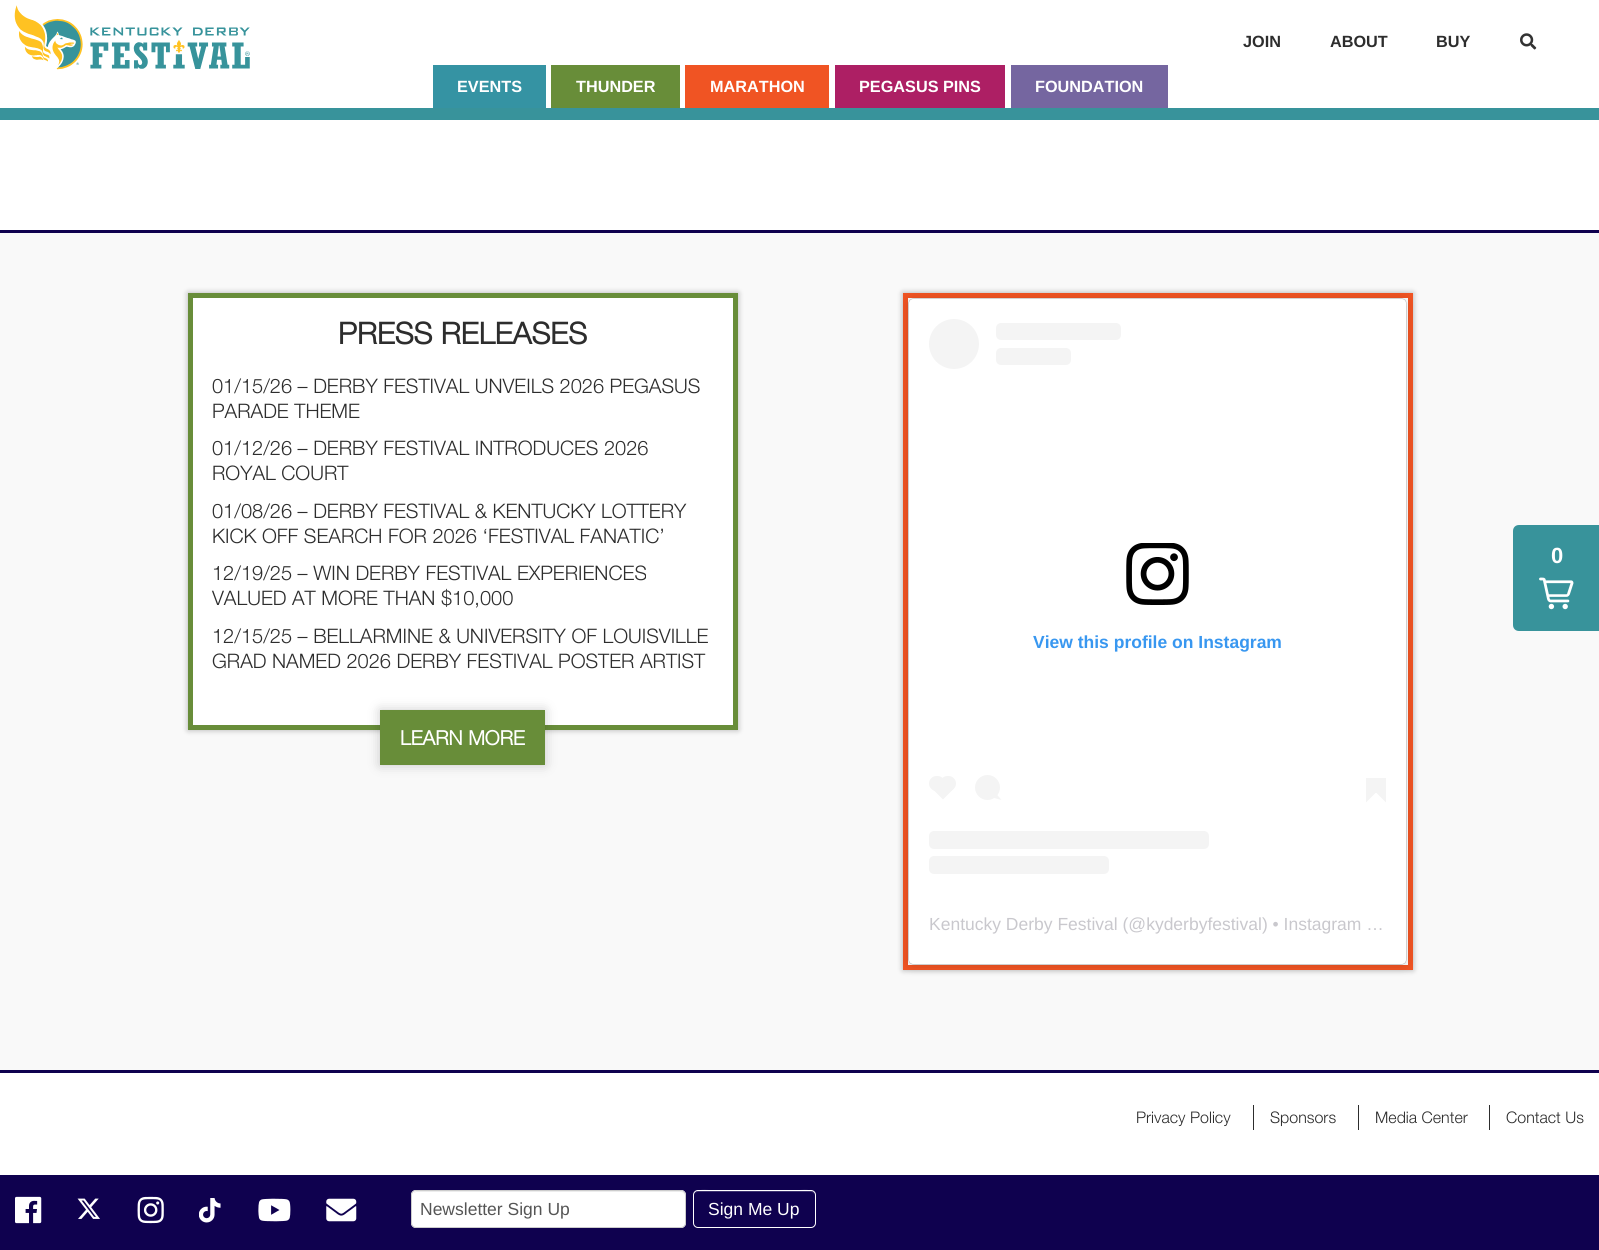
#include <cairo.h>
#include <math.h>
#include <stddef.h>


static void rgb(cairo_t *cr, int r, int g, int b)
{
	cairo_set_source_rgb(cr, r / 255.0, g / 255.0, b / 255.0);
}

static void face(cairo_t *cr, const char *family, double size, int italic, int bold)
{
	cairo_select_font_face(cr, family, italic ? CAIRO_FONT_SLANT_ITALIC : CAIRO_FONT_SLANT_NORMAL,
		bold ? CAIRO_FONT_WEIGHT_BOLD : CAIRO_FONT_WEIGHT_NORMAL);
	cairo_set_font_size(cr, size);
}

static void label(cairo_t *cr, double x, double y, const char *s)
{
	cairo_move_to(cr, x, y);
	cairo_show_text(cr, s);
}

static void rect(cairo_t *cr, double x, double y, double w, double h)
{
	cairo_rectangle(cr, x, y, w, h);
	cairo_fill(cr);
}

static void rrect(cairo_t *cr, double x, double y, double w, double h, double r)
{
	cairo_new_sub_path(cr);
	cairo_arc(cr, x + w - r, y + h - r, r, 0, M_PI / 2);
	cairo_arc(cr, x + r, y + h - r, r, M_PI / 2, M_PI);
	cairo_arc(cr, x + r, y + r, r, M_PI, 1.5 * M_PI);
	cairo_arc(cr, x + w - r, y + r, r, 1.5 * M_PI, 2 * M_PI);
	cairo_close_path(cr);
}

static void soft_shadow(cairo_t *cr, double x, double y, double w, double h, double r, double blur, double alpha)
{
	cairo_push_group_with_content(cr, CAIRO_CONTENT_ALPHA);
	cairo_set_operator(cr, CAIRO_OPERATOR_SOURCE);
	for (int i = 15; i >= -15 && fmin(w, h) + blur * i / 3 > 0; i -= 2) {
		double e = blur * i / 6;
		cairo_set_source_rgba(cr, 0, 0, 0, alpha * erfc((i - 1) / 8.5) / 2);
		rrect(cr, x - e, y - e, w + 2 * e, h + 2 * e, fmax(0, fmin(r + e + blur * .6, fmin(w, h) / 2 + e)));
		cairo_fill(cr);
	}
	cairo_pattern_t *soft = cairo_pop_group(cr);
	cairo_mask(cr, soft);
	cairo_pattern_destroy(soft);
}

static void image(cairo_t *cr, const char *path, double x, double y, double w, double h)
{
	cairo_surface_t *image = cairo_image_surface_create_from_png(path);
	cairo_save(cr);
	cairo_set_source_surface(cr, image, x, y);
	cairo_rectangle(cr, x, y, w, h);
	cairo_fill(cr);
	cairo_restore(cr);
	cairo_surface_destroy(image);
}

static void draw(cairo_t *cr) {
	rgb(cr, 255, 255, 255);
	cairo_paint(cr);
	image(cr, "image0.png", 14, 5, 236, 65);
	face(cr, "Liberation Sans", 16.25, 0, 1);
	rgb(cr, 45, 45, 45);
	label(cr, 1243, 47, "JOIN");
	label(cr, 1330, 47, "ABOUT");
	label(cr, 1436, 47, "BUY");
	image(cr, "image1.png", 1520, 33, 17, 17);
	rgb(cr, 53, 147, 163);
	rect(cr, 433, 65, 113, 43);
	rgb(cr, 255, 255, 255);
	label(cr, 457, 92, "EVENTS");
	rgb(cr, 104, 141, 57);
	rect(cr, 551, 65, 129, 43);
	rgb(cr, 255, 255, 255);
	label(cr, 576, 92, "THUNDER");
	rgb(cr, 240, 84, 35);
	rect(cr, 685, 65, 144, 43);
	rgb(cr, 255, 255, 255);
	label(cr, 710, 92, "MARATHON");
	rgb(cr, 173, 31, 100);
	rect(cr, 835, 65, 170, 43);
	rgb(cr, 255, 255, 255);
	label(cr, 859, 92, "PEGASUS PINS");
	rgb(cr, 117, 102, 160);
	rect(cr, 1011, 65, 157, 43);
	rgb(cr, 255, 255, 255);
	label(cr, 1035, 92, "FOUNDATION");
	rgb(cr, 56, 147, 155);
	rect(cr, 0, 108, 1599, 12);
	rgb(cr, 249, 249, 249);
	rect(cr, 0, 233, 1599, 837);
	rgb(cr, 15, 1, 79);
	rect(cr, 0, 230, 1599, 3);
	rect(cr, 0, 1070, 1599, 3);
	rgb(cr, 0, 0, 0);
	soft_shadow(cr, 188, 293, 550, 437, 0, 3, 0.3);
	rgb(cr, 255, 255, 255);
	cairo_rectangle(cr, 190.5, 295.5, 545, 432);
	cairo_fill_preserve(cr);
	rgb(cr, 104, 141, 57);
	cairo_set_line_width(cr, 5);
	cairo_stroke(cr);
	face(cr, "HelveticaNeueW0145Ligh", 30, 0, 1);
	rgb(cr, 45, 45, 45);
	label(cr, 338, 344, "PRESS RELEASES");
	face(cr, "HelveticaNeueW0145Ligh Light", 20, 0, 0);
	label(cr, 212, 393, "01/15/26 – DERBY FESTIVAL UNVEILS 2026 PEGASUS");
	label(cr, 212, 418, "PARADE THEME");
	label(cr, 212, 455, "01/12/26 – DERBY FESTIVAL INTRODUCES 2026");
	label(cr, 212, 480, "ROYAL COURT");
	label(cr, 212, 518, "01/08/26 – DERBY FESTIVAL & KENTUCKY LOTTERY");
	label(cr, 212, 543, "KICK OFF SEARCH FOR 2026 ‘FESTIVAL FANATIC’");
	label(cr, 212, 580, "12/19/25 – WIN DERBY FESTIVAL EXPERIENCES");
	label(cr, 212, 605, "VALUED AT MORE THAN $10,000");
	label(cr, 212, 643, "12/15/25 – BELLARMINE & UNIVERSITY OF LOUISVILLE");
	label(cr, 212, 668, "GRAD NAMED 2026 DERBY FESTIVAL POSTER ARTIST");
	rgb(cr, 0, 0, 0);
	soft_shadow(cr, 380, 710, 165, 55, 0, 6, 0.2);
	rgb(cr, 104, 141, 57);
	rect(cr, 380, 710, 165, 55);
	face(cr, "HelveticaNeueW0145Ligh", 20, 0, 1);
	rgb(cr, 255, 255, 255);
	label(cr, 400, 745, "LEARN MORE");
	rgb(cr, 0, 0, 0);
	soft_shadow(cr, 903, 293, 510, 677, 0, 3, 0.3);
	rgb(cr, 255, 255, 255);
	cairo_rectangle(cr, 905.5, 295.5, 505, 672);
	cairo_fill_preserve(cr);
	rgb(cr, 240, 84, 35);
	cairo_stroke(cr);
	rgb(cr, 0, 0, 0);
	soft_shadow(cr, 909, 300, 497, 665, 4, 6, 0.15);
	soft_shadow(cr, 909, 299, 497, 665, 4, 0.5, 0.5);
	rgb(cr, 255, 255, 255);
	rrect(cr, 909, 299, 497, 665, 4);
	cairo_fill(cr);
	rgb(cr, 244, 244, 244);
	cairo_arc(cr, 954, 344, 25, 0, 2 * M_PI);
	cairo_fill(cr);
	rrect(cr, 996, 323, 125, 17, 5);
	cairo_fill(cr);
	rrect(cr, 996, 348, 75, 17, 5);
	cairo_fill(cr);
	image(cr, "image2.png", 1126, 543, 63, 62);
	face(cr, "Liberation Sans", 17.5, 0, 1);
	rgb(cr, 56, 151, 240);
	label(cr, 1033, 648, "View this profile on Instagram");
	rgb(cr, 244, 244, 244);
	rrect(cr, 929, 776, 16, 15, 7.5);
	cairo_fill(cr);
	cairo_new_path(cr);
	cairo_move_to(cr, 932, 788.5);
	cairo_line_to(cr, 943, 777.5);
	cairo_line_to(cr, 954, 788.5);
	cairo_line_to(cr, 943, 799.5);
	cairo_close_path(cr);
	cairo_fill(cr);
	rrect(cr, 940, 776, 16, 15, 7.5);
	cairo_fill(cr);
	cairo_arc(cr, 987.5, 787.5, 12.5, 0, 2 * M_PI);
	cairo_fill(cr);
	cairo_new_path(cr);
	cairo_move_to(cr, 994, 798);
	cairo_line_to(cr, 996.5, 794);
	cairo_line_to(cr, 1001.5, 800);
	cairo_close_path(cr);
	cairo_fill(cr);
	cairo_new_path(cr);
	cairo_move_to(cr, 1366, 792.5);
	cairo_line_to(cr, 1376, 792.5);
	cairo_line_to(cr, 1366, 802.5);
	cairo_close_path(cr);
	cairo_fill(cr);
	rect(cr, 1366, 778, 20, 15);
	cairo_new_path(cr);
	cairo_move_to(cr, 1376, 792.5);
	cairo_line_to(cr, 1386, 792.5);
	cairo_line_to(cr, 1386, 802.5);
	cairo_close_path(cr);
	cairo_fill(cr);
	rrect(cr, 929, 831, 280, 18, 5);
	cairo_fill(cr);
	rrect(cr, 929, 856, 180, 18, 5);
	cairo_fill(cr);
	face(cr, "Liberation Sans", 17.5, 0, 0);
	rgb(cr, 201, 200, 205);
	label(cr, 929, 930, "Kentucky Derby Festival (@kyderbyfestival) • Instagram …");
	rgb(cr, 56, 147, 155);
	cairo_new_path(cr);
	cairo_move_to(cr, 1519, 525);
	cairo_line_to(cr, 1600, 525);
	cairo_line_to(cr, 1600, 631);
	cairo_line_to(cr, 1519, 631);
	cairo_curve_to(cr, 1515.5, 631, 1513, 628.5, 1513, 625);
	cairo_line_to(cr, 1513, 531);
	cairo_curve_to(cr, 1513, 527.5, 1515.5, 525, 1519, 525);
	cairo_close_path(cr);
	cairo_fill(cr);
	face(cr, "Liberation Sans", 22, 0, 1);
	rgb(cr, 255, 255, 255);
	label(cr, 1551, 563, "0");
	image(cr, "image3.png", 1539, 577, 35, 33);
	rgb(cr, 15, 1, 79);
	rect(cr, 0, 1175, 1599, 75);
	image(cr, "image4.png", 15, 1196, 27, 28);
	image(cr, "image5.png", 77, 1198, 23, 21);
	image(cr, "image6.png", 137, 1196, 27, 28);
	image(cr, "image7.png", 199, 1198, 22, 25);
	image(cr, "image8.png", 258, 1198, 33, 24);
	image(cr, "image9.png", 326, 1198, 31, 24);
	rgb(cr, 255, 255, 255);
	rrect(cr, 411, 1190, 275, 38, 5);
	cairo_fill(cr);
	rgb(cr, 236, 236, 236);
	cairo_new_path(cr);
	cairo_move_to(cr, 416, 1192);
	cairo_line_to(cr, 681, 1192);
	cairo_curve_to(cr, 683, 1192, 685, 1194, 685, 1196);
	cairo_line_to(cr, 685, 1195);
	cairo_curve_to(cr, 685, 1193, 683, 1191, 681, 1191);
	cairo_line_to(cr, 417, 1191);
	cairo_curve_to(cr, 416, 1191, 414, 1192, 414, 1193);
	cairo_close_path(cr);
	cairo_fill(cr);
	rrect(cr, 411.5, 1190.5, 274, 37, 4.5);
	rgb(cr, 204, 204, 204);
	cairo_set_line_width(cr, 1);
	cairo_stroke(cr);
	face(cr, "Liberation Sans", 17.5, 0, 0);
	rgb(cr, 85, 85, 85);
	label(cr, 420, 1215, "Newsletter Sign Up");
	rgb(cr, 63, 52, 114);
	cairo_new_path(cr);
	cairo_move_to(cr, 698, 1192);
	cairo_line_to(cr, 811, 1192);
	cairo_curve_to(cr, 813, 1192, 815, 1194, 815, 1196);
	cairo_curve_to(cr, 815, 1186, 795, 1191, 792, 1191);
	cairo_line_to(cr, 717, 1191);
	cairo_curve_to(cr, 714, 1191, 694, 1186, 694, 1196);
	cairo_curve_to(cr, 694, 1194, 695, 1192, 698, 1192);
	cairo_close_path(cr);
	cairo_fill(cr);
	rrect(cr, 693.5, 1190.5, 122, 37, 4.5);
	rgb(cr, 255, 255, 255);
	cairo_stroke(cr);
	label(cr, 708, 1215, "Sign Me Up");
	face(cr, "HelveticaNeueW0145Ligh Light", 16, 0, 0);
	rgb(cr, 45, 45, 45);
	label(cr, 1136, 1123, "Privacy Policy");
	rect(cr, 1253, 1105, 1, 25);
	label(cr, 1270, 1123, "Sponsors");
	rect(cr, 1358, 1105, 1, 25);
	label(cr, 1375, 1123, "Media Center");
	rect(cr, 1489, 1105, 1, 25);
	label(cr, 1506, 1123, "Contact Us");
}

int main(void) {
	cairo_surface_t *surface = cairo_image_surface_create(CAIRO_FORMAT_RGB24, 1599, 1250);
	cairo_t *cr = cairo_create(surface);
	cairo_font_options_t *options = cairo_font_options_create();
	cairo_font_options_set_hint_metrics(options, CAIRO_HINT_METRICS_OFF);
	cairo_font_options_set_hint_style(options, CAIRO_HINT_STYLE_NONE);
	cairo_set_font_options(cr, options);
	cairo_set_miter_limit(cr, 4);
	draw(cr);
	cairo_surface_write_to_png(surface, "render.png");
	cairo_font_options_destroy(options);
	cairo_destroy(cr);
	cairo_surface_destroy(surface);
	return 0;
}
